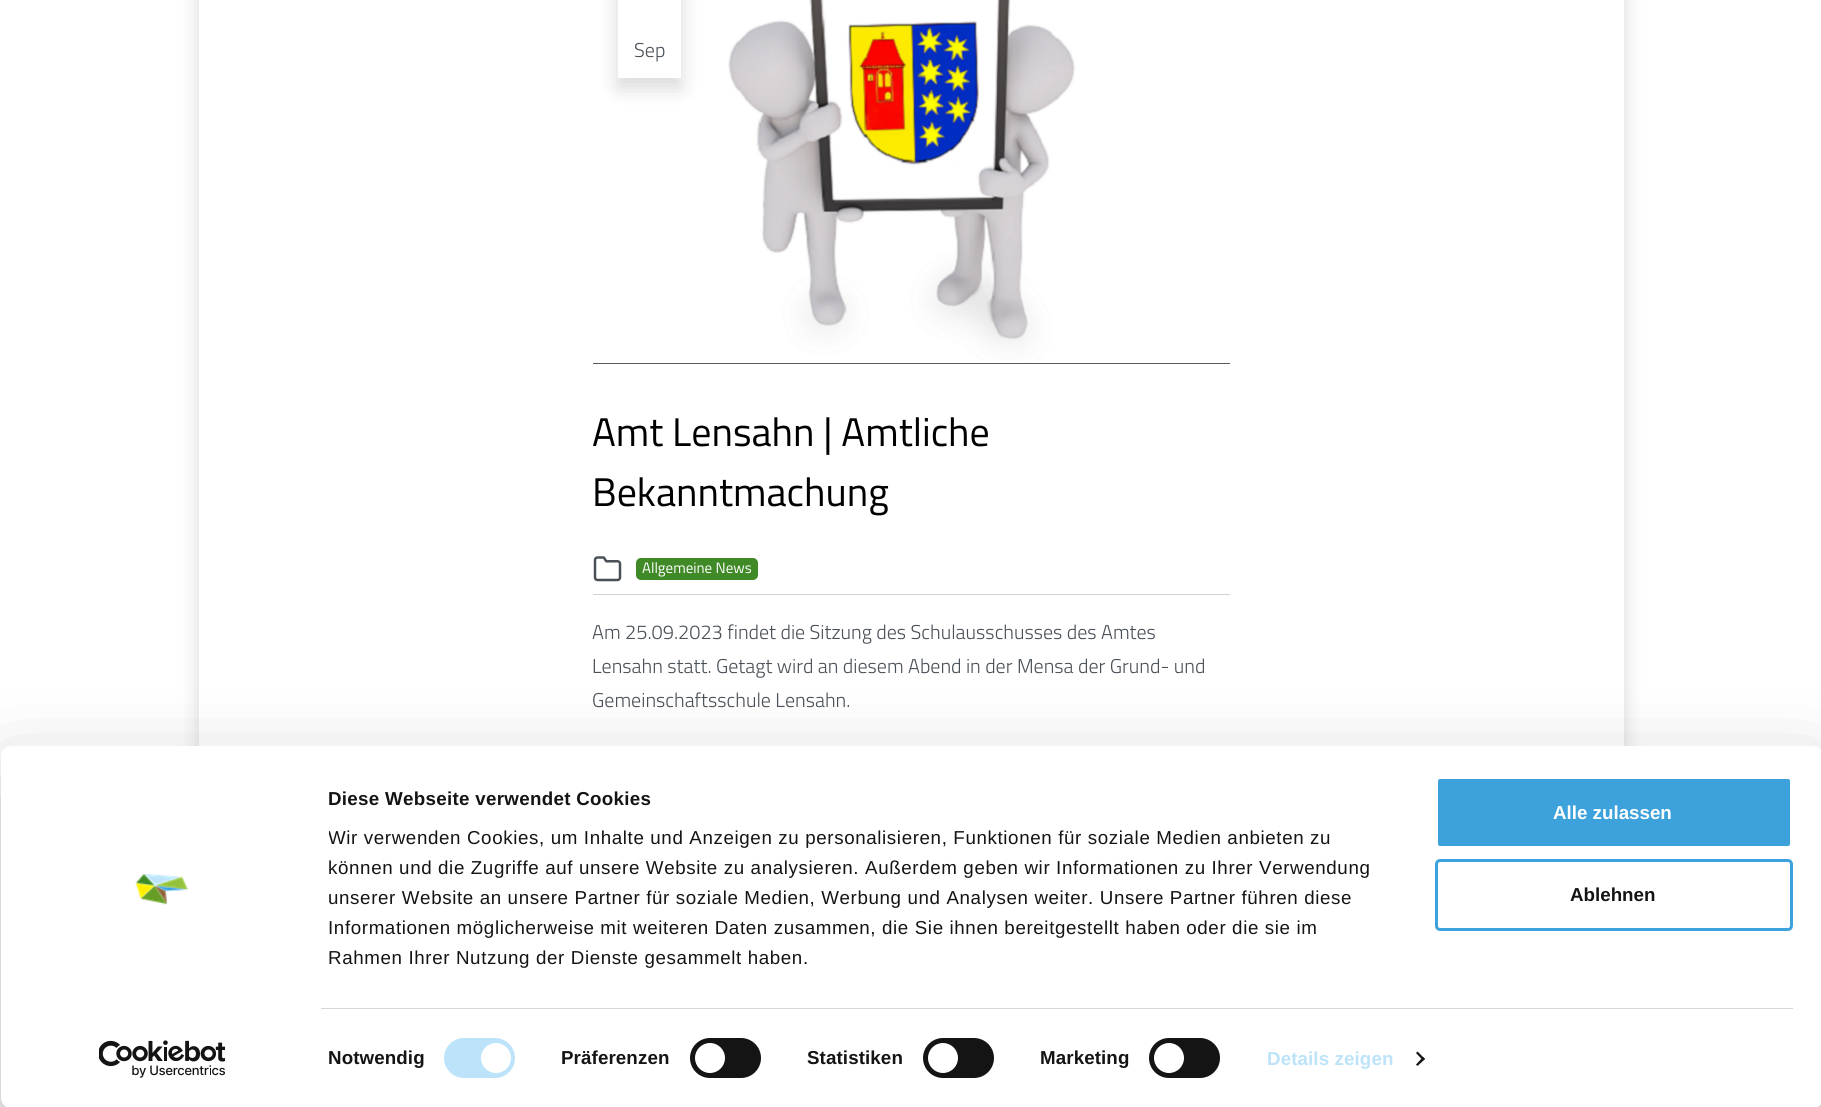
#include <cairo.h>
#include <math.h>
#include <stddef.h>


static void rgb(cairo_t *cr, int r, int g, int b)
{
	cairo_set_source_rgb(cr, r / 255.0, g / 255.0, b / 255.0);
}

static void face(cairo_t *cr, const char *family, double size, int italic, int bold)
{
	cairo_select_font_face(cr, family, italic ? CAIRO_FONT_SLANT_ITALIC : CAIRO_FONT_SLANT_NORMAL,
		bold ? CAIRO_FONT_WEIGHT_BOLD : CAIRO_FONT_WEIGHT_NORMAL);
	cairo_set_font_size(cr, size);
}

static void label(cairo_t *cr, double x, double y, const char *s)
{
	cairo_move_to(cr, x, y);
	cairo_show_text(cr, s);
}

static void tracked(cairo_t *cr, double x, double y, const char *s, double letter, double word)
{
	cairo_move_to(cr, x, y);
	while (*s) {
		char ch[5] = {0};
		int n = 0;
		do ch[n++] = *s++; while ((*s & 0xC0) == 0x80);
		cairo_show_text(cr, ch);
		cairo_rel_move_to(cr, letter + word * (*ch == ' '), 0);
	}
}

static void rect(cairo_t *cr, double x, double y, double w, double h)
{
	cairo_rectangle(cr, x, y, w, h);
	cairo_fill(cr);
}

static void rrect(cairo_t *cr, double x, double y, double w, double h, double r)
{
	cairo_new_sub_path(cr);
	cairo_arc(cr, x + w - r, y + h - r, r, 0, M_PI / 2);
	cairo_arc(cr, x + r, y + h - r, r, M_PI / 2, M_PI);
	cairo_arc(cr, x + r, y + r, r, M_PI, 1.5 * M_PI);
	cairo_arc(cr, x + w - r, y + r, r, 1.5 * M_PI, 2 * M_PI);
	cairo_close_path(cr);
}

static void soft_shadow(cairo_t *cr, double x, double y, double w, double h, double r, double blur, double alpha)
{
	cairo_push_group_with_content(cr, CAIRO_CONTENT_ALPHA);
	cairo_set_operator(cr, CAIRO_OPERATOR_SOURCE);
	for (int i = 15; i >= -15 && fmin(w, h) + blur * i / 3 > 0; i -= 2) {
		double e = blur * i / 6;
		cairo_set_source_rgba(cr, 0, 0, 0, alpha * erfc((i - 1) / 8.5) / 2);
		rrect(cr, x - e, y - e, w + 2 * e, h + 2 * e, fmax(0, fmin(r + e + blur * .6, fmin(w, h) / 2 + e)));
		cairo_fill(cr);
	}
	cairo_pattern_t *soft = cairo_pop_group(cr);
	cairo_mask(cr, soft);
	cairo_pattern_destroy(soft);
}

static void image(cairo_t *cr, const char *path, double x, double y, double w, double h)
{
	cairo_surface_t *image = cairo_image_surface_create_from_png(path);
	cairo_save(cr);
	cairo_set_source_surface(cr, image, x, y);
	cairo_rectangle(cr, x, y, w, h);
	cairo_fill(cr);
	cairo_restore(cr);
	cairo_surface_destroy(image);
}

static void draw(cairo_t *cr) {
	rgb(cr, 255, 255, 255);
	cairo_paint(cr);
	rgb(cr, 0, 0, 0);
	soft_shadow(cr, 199, -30, 1425, 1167, 0, 10, 0.15);
	rgb(cr, 255, 255, 255);
	rect(cr, 199, 0, 1425, 746);
	rgb(cr, 0, 0, 0);
	rect(cr, 593, 363, 637, 1);
	image(cr, "image0.png", 593, 0, 637, 364);
	rgb(cr, 0, 0, 0);
	soft_shadow(cr, 618, -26, 63, 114, 0, 10, 0.15);
	rgb(cr, 255, 255, 255);
	rect(cr, 618, 0, 63, 78);
	face(cr, "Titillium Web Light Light", 20, 0, 0);
	rgb(cr, 73, 80, 87);
	label(cr, 634, 57, "Sep");
	face(cr, "Titillium Web", 40, 0, 0);
	rgb(cr, 0, 0, 0);
	label(cr, 592, 446, "Amt Lensahn | Amtliche");
	label(cr, 592, 506, "Bekanntmachung");
	rgb(cr, 206, 212, 218);
	rect(cr, 593, 594, 637, 1);
	image(cr, "image1.png", 593, 556, 29, 26);
	rgb(cr, 64, 137, 39);
	rrect(cr, 636, 558, 122, 22, 5);
	cairo_fill(cr);
	face(cr, "Titillium Web", 15, 0, 0);
	rgb(cr, 255, 255, 255);
	label(cr, 642, 573, "Allgemeine News");
	face(cr, "Titillium Web Light Light", 20, 0, 0);
	rgb(cr, 73, 80, 87);
	label(cr, 592, 639, "Am 25.09.2023 findet die Sitzung des Schulausschusses des Amtes");
	label(cr, 592, 673, "Lensahn statt. Getagt wird an diesem Abend in der Mensa der Grund- und");
	label(cr, 592, 707, "Gemeinschaftsschule Lensahn.");
	rgb(cr, 0, 0, 0);
	soft_shadow(cr, 1, 784, 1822, 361, 10, 44, 0.3);
	rgb(cr, 255, 255, 255);
	rrect(cr, 1, 746, 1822, 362, 10);
	cairo_fill(cr);
	cairo_save(cr);
	cairo_rectangle(cr, 329, 784, 1070, 189);
	cairo_clip(cr);
	face(cr, "Liberation Sans", 18.75, 0, 1);
	rgb(cr, 20, 20, 20);
	tracked(cr, 328, 805, "Diese Webseite verwendet Cookies", 0.3, 0);
	face(cr, "Liberation Sans", 18.75, 0, 0);
	tracked(cr, 328, 844, "Wir verwenden Cookies, um Inhalte und Anzeigen zu personalisieren, Funktionen für soziale Medien anbieten zu", 0.62, 0);
	tracked(cr, 328, 874, "können und die Zugriffe auf unsere Website zu analysieren. Außerdem geben wir Informationen zu Ihrer Verwendung", 0.62, 0);
	tracked(cr, 328, 904, "unserer Website an unsere Partner für soziale Medien, Werbung und Analysen weiter. Unsere Partner führen diese", 0.62, 0);
	cairo_restore(cr);
	face(cr, "Liberation Sans", 18.75, 0, 0);
	rgb(cr, 20, 20, 20);
	tracked(cr, 328, 934, "Informationen möglicherweise mit weiteren Daten zusammen, die Sie ihnen bereitgestellt haben oder die sie im", 0.62, 0);
	tracked(cr, 328, 964, "Rahmen Ihrer Nutzung der Dienste gesammelt haben.", 0.62, 0);
	rgb(cr, 214, 214, 214);
	rect(cr, 321, 1008, 1472, 1);
	face(cr, "Liberation Sans", 18.75, 0, 1);
	rgb(cr, 20, 20, 20);
	tracked(cr, 328, 1064, "Notwendig", 0.1, 0);
	rgb(cr, 188, 227, 249);
	rrect(cr, 444, 1038, 71, 40, 20);
	cairo_fill(cr);
	rgb(cr, 255, 255, 255);
	cairo_arc(cr, 496, 1058, 15, 0, 2 * M_PI);
	cairo_fill(cr);
	rgb(cr, 20, 20, 20);
	tracked(cr, 561, 1064, "Präferenzen", 0.1, 0);
	rrect(cr, 690, 1038, 71, 40, 20);
	cairo_fill(cr);
	rgb(cr, 255, 255, 255);
	cairo_arc(cr, 710, 1058, 15, 0, 2 * M_PI);
	cairo_fill(cr);
	rgb(cr, 20, 20, 20);
	tracked(cr, 807, 1064, "Statistiken", 0.1, 0);
	rrect(cr, 923, 1038, 71, 40, 20);
	cairo_fill(cr);
	rgb(cr, 255, 255, 255);
	cairo_arc(cr, 943, 1058, 15, 0, 2 * M_PI);
	cairo_fill(cr);
	rgb(cr, 20, 20, 20);
	tracked(cr, 1040, 1064, "Marketing", 0.1, 0);
	rrect(cr, 1149, 1038, 71, 40, 20);
	cairo_fill(cr);
	rgb(cr, 255, 255, 255);
	cairo_arc(cr, 1169, 1058, 15, 0, 2 * M_PI);
	cairo_fill(cr);
	rgb(cr, 188, 227, 249);
	tracked(cr, 1267, 1065, "Details zeigen", 0.1, 0);
	rgb(cr, 20, 20, 20);
	cairo_new_path(cr);
	cairo_move_to(cr, 1417.5, 1051.5);
	cairo_line_to(cr, 1425, 1059);
	cairo_line_to(cr, 1423, 1060.5);
	cairo_line_to(cr, 1416, 1053);
	cairo_close_path(cr);
	cairo_fill(cr);
	cairo_new_path(cr);
	cairo_move_to(cr, 1423, 1057);
	cairo_line_to(cr, 1425, 1059);
	cairo_line_to(cr, 1417.5, 1066);
	cairo_line_to(cr, 1416, 1064.5);
	cairo_close_path(cr);
	cairo_fill(cr);
	rgb(cr, 61, 162, 219);
	rrect(cr, 1436.5, 777.5, 355, 70, 3.5);
	cairo_fill_preserve(cr);
	rgb(cr, 255, 255, 255);
	cairo_set_line_width(cr, 3);
	cairo_stroke(cr);
	label(cr, 1553, 819, "Alle zulassen");
	rrect(cr, 1436.5, 860.5, 355, 69, 3.5);
	rgb(cr, 61, 162, 219);
	cairo_stroke(cr);
	rgb(cr, 20, 20, 20);
	label(cr, 1570, 901, "Ablehnen");
	image(cr, "image2.png", 135, 874, 54, 31);
	image(cr, "image3.png", 99, 1040, 126, 38);
}

int main(void) {
	cairo_surface_t *surface = cairo_image_surface_create(CAIRO_FORMAT_RGB24, 1821, 1107);
	cairo_t *cr = cairo_create(surface);
	cairo_font_options_t *options = cairo_font_options_create();
	cairo_font_options_set_hint_metrics(options, CAIRO_HINT_METRICS_OFF);
	cairo_font_options_set_hint_style(options, CAIRO_HINT_STYLE_NONE);
	cairo_set_font_options(cr, options);
	cairo_set_miter_limit(cr, 4);
	draw(cr);
	cairo_surface_write_to_png(surface, "render.png");
	cairo_font_options_destroy(options);
	cairo_destroy(cr);
	cairo_surface_destroy(surface);
	return 0;
}
